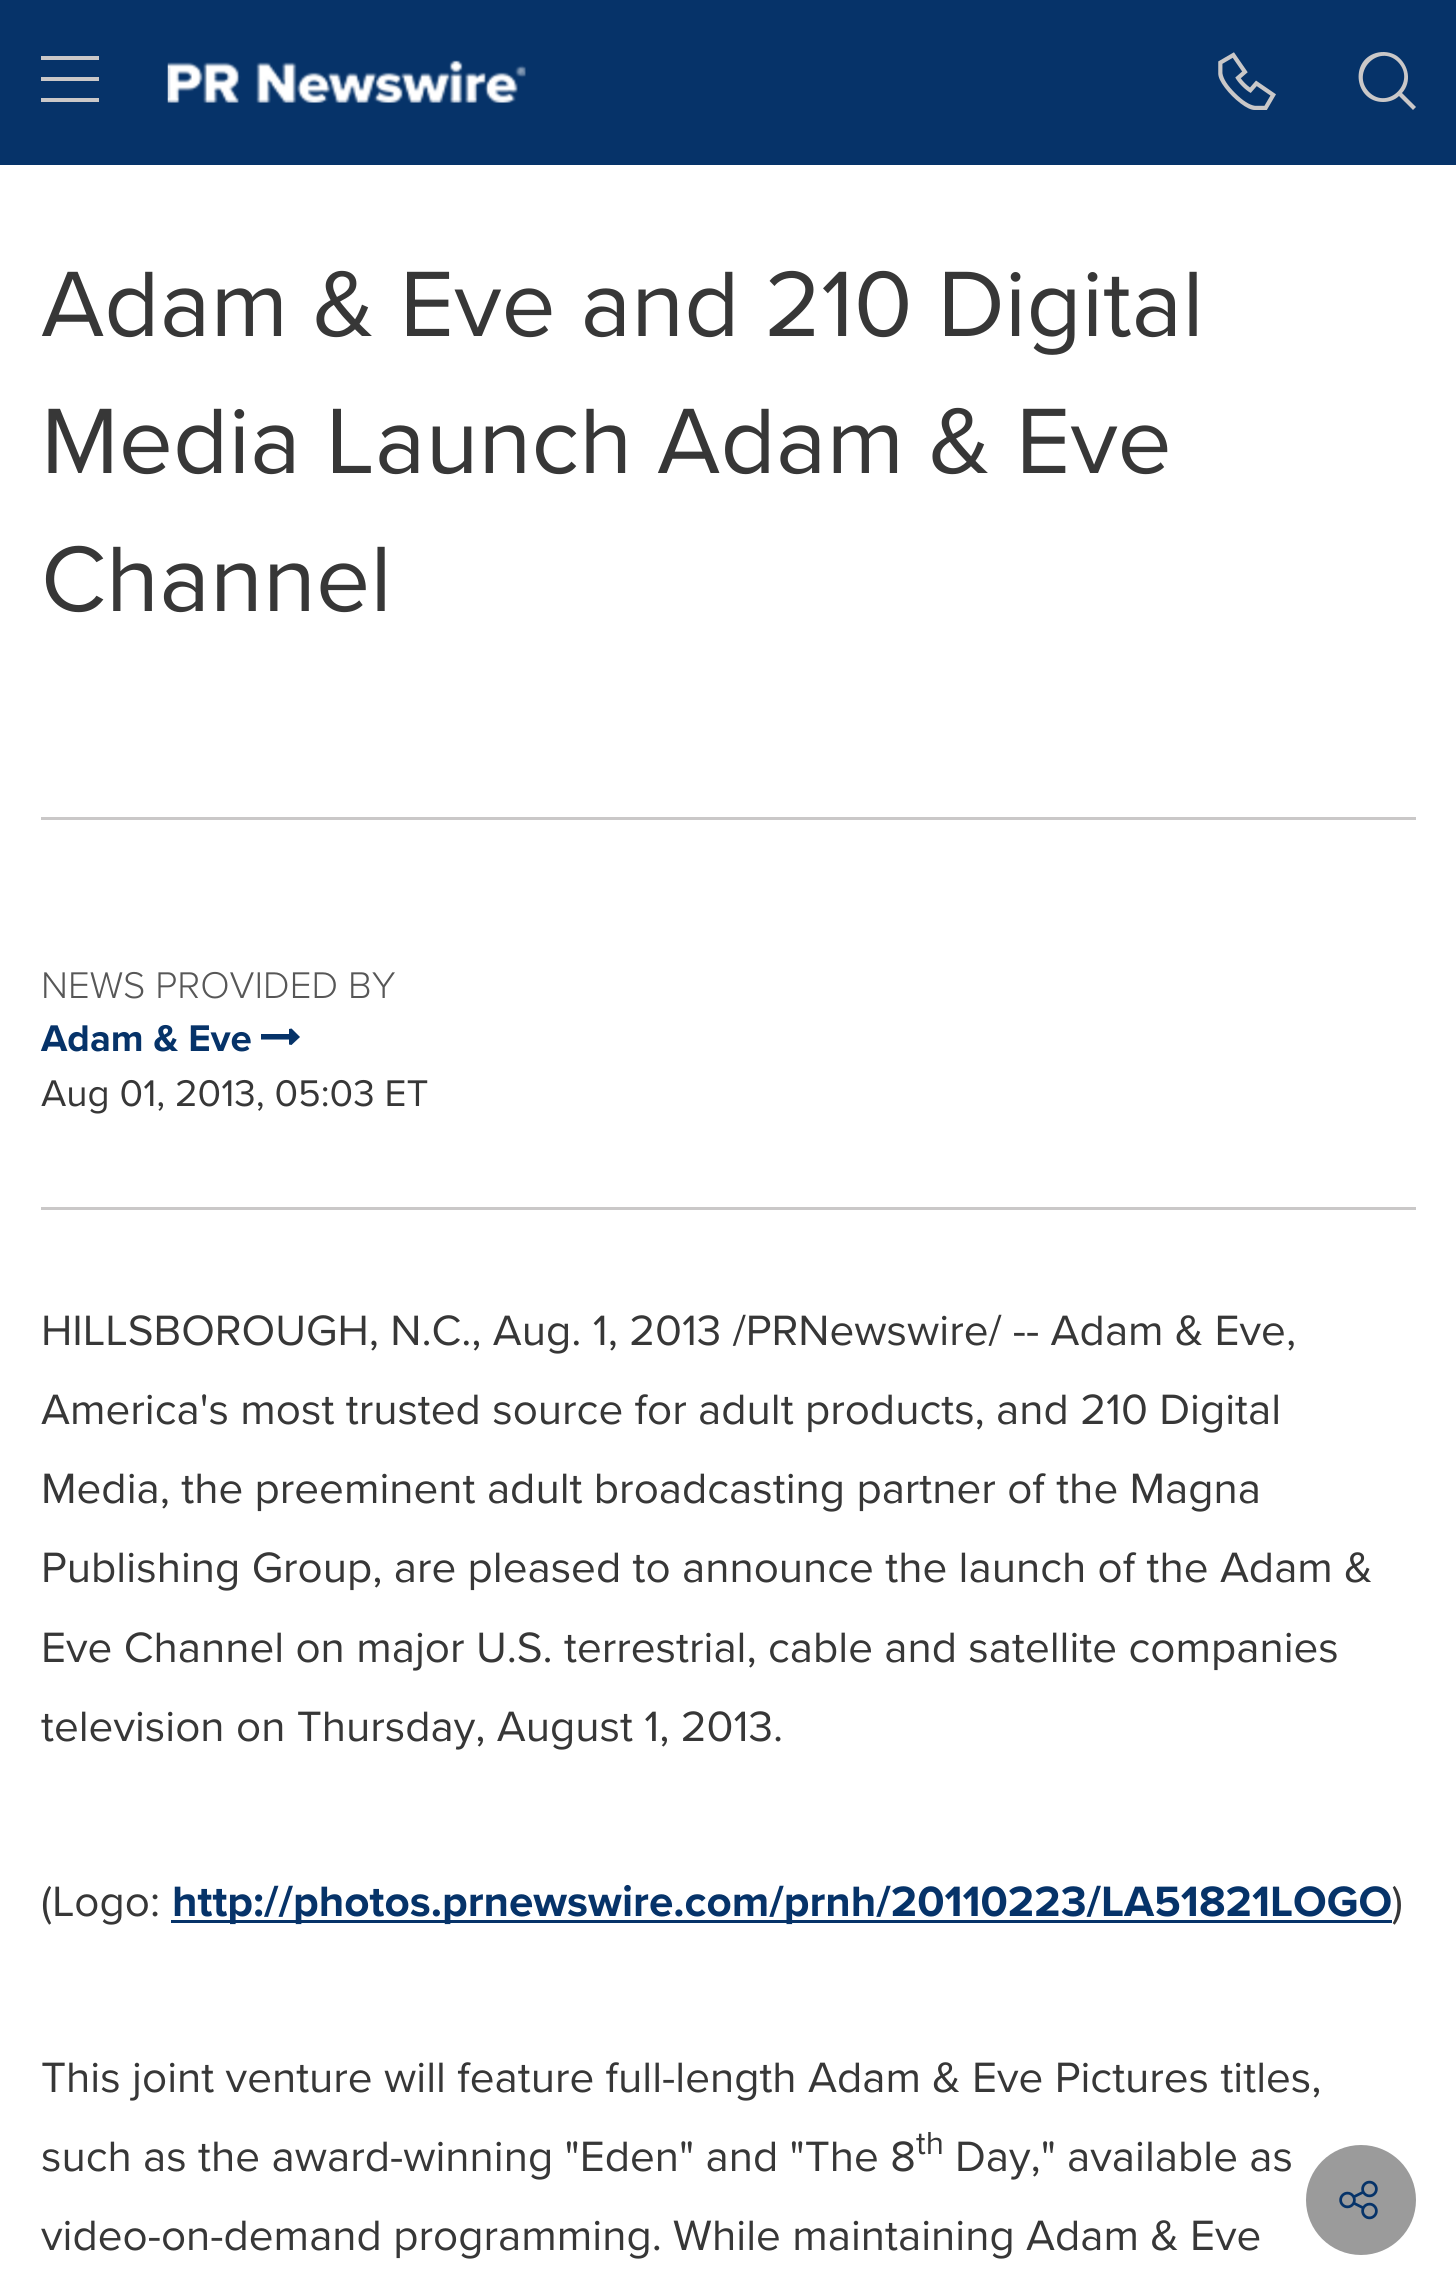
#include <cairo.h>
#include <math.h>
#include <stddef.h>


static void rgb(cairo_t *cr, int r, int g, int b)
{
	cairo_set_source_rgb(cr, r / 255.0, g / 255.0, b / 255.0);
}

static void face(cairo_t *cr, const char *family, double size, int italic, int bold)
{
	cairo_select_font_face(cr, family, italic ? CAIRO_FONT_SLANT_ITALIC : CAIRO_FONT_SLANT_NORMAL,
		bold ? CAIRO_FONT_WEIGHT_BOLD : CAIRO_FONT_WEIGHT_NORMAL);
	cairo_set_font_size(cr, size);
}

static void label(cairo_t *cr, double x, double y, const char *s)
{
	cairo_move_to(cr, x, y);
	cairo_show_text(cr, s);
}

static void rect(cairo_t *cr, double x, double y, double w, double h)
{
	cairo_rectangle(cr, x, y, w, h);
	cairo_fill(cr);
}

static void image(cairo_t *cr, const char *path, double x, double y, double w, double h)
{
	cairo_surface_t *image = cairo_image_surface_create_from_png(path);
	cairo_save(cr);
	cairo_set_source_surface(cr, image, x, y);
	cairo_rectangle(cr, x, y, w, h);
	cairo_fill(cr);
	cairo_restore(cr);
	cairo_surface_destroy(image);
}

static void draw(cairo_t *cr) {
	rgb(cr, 255, 255, 255);
	cairo_paint(cr);
	rgb(cr, 6, 51, 105);
	rect(cr, 0, 0, 1456, 165);
	rgb(cr, 202, 200, 200);
	cairo_new_path(cr);
	cairo_move_to(cr, 99, 77);
	cairo_line_to(cr, 99, 81);
	cairo_line_to(cr, 41, 81);
	cairo_line_to(cr, 41, 77);
	cairo_close_path(cr);
	cairo_move_to(cr, 99, 98);
	cairo_line_to(cr, 99, 102);
	cairo_line_to(cr, 41, 102);
	cairo_line_to(cr, 41, 98);
	cairo_close_path(cr);
	cairo_move_to(cr, 99, 56);
	cairo_line_to(cr, 99, 60);
	cairo_line_to(cr, 41, 60);
	cairo_line_to(cr, 41, 56);
	cairo_close_path(cr);
	cairo_fill(cr);
	image(cr, "image0.png", 167, 60, 359, 43);
	image(cr, "image1.png", 1218, 52, 58, 58);
	cairo_new_path(cr);
	cairo_move_to(cr, 1416, 107);
	cairo_line_to(cr, 1413, 110);
	cairo_line_to(cr, 1399, 96);
	cairo_curve_to(cr, 1395, 100, 1389, 102, 1383, 102);
	cairo_curve_to(cr, 1355, 102, 1349, 61, 1376, 53);
	cairo_curve_to(cr, 1383, 51, 1391, 52, 1397, 56);
	cairo_curve_to(cr, 1409, 65, 1412, 82, 1402, 93);
	cairo_close_path(cr);
	cairo_move_to(cr, 1369, 92);
	cairo_curve_to(cr, 1388, 111, 1417, 82, 1398, 62);
	cairo_curve_to(cr, 1379, 43, 1350, 72, 1369, 92);
	cairo_close_path(cr);
	cairo_fill(cr);
	face(cr, "Proxima Nova", 96.25, 0, 0);
	rgb(cr, 55, 55, 55);
	label(cr, 41, 336, "Adam & Eve and 210 Digital");
	label(cr, 41, 473, "Media Launch Adam & Eve");
	label(cr, 41, 611, "Channel");
	rgb(cr, 202, 200, 200);
	rect(cr, 41, 817, 1375, 3);
	face(cr, "Proxima Nova Light", 38.5, 0, 0);
	rgb(cr, 87, 87, 87);
	label(cr, 41, 998, "NEWS PROVIDED BY");
	face(cr, "Proxima Nova", 38.5, 0, 1);
	rgb(cr, 6, 51, 105);
	label(cr, 41, 1051, "Adam & Eve");
	cairo_new_path(cr);
	cairo_move_to(cr, 291.5, 1028.5);
	cairo_line_to(cr, 300, 1037);
	cairo_line_to(cr, 291.5, 1045);
	cairo_line_to(cr, 289, 1044.5);
	cairo_line_to(cr, 289, 1039.5);
	cairo_line_to(cr, 261, 1039.5);
	cairo_line_to(cr, 261, 1034);
	cairo_line_to(cr, 289, 1034);
	cairo_line_to(cr, 289, 1029);
	cairo_close_path(cr);
	cairo_fill(cr);
	face(cr, "Proxima Nova", 38.5, 0, 0);
	rgb(cr, 55, 55, 55);
	label(cr, 41, 1106, "Aug 01, 2013, 05:03 ET");
	rgb(cr, 155, 155, 155);
	cairo_new_path(cr);
	cairo_arc(cr, 1361, 2200, 55, 0, 2 * M_PI);
	cairo_fill(cr);
	image(cr, "image2.png", 1339, 2180, 39, 40);
	rgb(cr, 202, 200, 200);
	rect(cr, 41, 1207, 1375, 3);
	face(cr, "Proxima Nova", 44, 0, 0);
	rgb(cr, 55, 55, 55);
	label(cr, 41, 1345, "HILLSBOROUGH, N.C., Aug. 1, 2013 /PRNewswire/ -- Adam & Eve,");
	label(cr, 41, 1424, "America's most trusted source for adult products, and 210 Digital");
	label(cr, 41, 1503, "Media, the preeminent adult broadcasting partner of the Magna");
	label(cr, 41, 1582, "Publishing Group, are pleased to announce the launch of the Adam &");
	label(cr, 41, 1662, "Eve Channel on major U.S. terrestrial, cable and satellite companies");
	label(cr, 41, 1741, "television on Thursday, August 1, 2013.");
	label(cr, 41, 1916, "(Logo:");
	rgb(cr, 6, 51, 105);
	rect(cr, 171, 1920, 1221, 3);
	face(cr, "Proxima Nova", 44, 0, 1);
	label(cr, 172, 1916, "http://photos.prnewswire.com/prnh/20110223/LA51821LOGO");
	face(cr, "Proxima Nova", 44, 0, 0);
	rgb(cr, 55, 55, 55);
	label(cr, 1392, 1916, ")");
	label(cr, 41, 2092, "This joint venture will feature full-length Adam & Eve Pictures titles,");
	label(cr, 41, 2171, "such as the award-winning \"Eden\" and \"The 8");
	face(cr, "Proxima Nova", 33, 0, 0);
	label(cr, 916, 2154, "th");
	face(cr, "Proxima Nova", 44, 0, 0);
	label(cr, 955, 2171, "Day,\" available as");
	label(cr, 41, 2250, "video-on-demand programming. While maintaining Adam & Eve");
}

int main(void) {
	cairo_surface_t *surface = cairo_image_surface_create(CAIRO_FORMAT_RGB24, 1456, 2294);
	cairo_t *cr = cairo_create(surface);
	cairo_font_options_t *options = cairo_font_options_create();
	cairo_font_options_set_hint_metrics(options, CAIRO_HINT_METRICS_OFF);
	cairo_font_options_set_hint_style(options, CAIRO_HINT_STYLE_NONE);
	cairo_set_font_options(cr, options);
	cairo_set_miter_limit(cr, 4);
	draw(cr);
	cairo_surface_write_to_png(surface, "render.png");
	cairo_font_options_destroy(options);
	cairo_destroy(cr);
	cairo_surface_destroy(surface);
	return 0;
}
